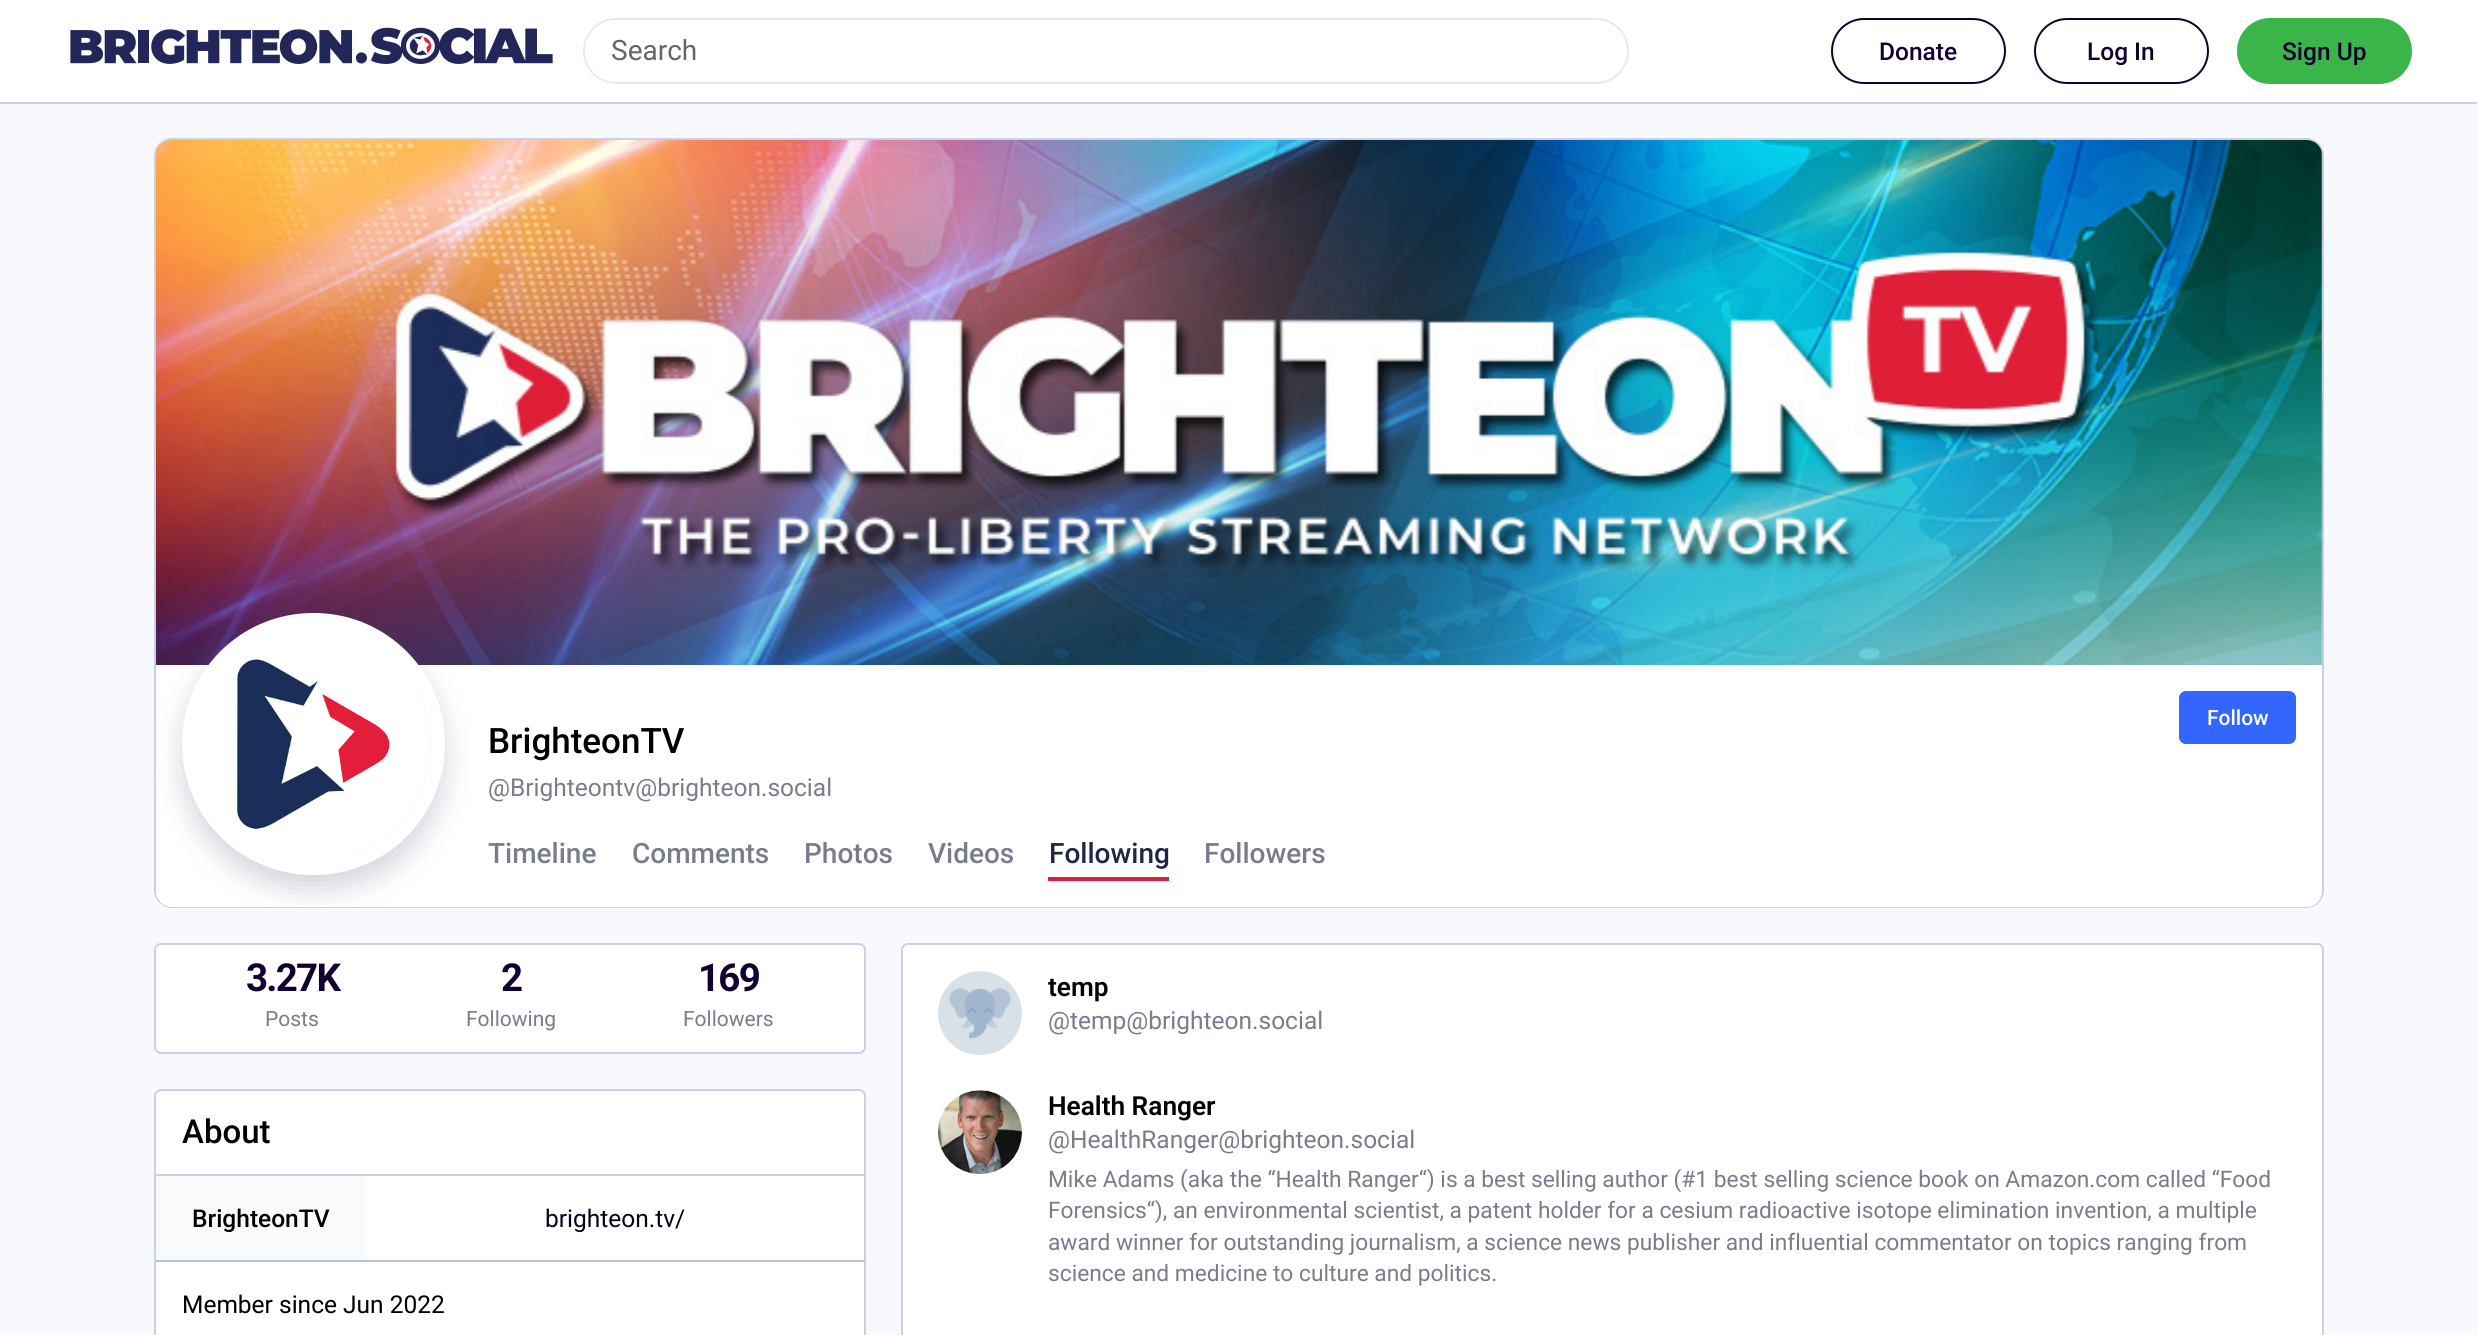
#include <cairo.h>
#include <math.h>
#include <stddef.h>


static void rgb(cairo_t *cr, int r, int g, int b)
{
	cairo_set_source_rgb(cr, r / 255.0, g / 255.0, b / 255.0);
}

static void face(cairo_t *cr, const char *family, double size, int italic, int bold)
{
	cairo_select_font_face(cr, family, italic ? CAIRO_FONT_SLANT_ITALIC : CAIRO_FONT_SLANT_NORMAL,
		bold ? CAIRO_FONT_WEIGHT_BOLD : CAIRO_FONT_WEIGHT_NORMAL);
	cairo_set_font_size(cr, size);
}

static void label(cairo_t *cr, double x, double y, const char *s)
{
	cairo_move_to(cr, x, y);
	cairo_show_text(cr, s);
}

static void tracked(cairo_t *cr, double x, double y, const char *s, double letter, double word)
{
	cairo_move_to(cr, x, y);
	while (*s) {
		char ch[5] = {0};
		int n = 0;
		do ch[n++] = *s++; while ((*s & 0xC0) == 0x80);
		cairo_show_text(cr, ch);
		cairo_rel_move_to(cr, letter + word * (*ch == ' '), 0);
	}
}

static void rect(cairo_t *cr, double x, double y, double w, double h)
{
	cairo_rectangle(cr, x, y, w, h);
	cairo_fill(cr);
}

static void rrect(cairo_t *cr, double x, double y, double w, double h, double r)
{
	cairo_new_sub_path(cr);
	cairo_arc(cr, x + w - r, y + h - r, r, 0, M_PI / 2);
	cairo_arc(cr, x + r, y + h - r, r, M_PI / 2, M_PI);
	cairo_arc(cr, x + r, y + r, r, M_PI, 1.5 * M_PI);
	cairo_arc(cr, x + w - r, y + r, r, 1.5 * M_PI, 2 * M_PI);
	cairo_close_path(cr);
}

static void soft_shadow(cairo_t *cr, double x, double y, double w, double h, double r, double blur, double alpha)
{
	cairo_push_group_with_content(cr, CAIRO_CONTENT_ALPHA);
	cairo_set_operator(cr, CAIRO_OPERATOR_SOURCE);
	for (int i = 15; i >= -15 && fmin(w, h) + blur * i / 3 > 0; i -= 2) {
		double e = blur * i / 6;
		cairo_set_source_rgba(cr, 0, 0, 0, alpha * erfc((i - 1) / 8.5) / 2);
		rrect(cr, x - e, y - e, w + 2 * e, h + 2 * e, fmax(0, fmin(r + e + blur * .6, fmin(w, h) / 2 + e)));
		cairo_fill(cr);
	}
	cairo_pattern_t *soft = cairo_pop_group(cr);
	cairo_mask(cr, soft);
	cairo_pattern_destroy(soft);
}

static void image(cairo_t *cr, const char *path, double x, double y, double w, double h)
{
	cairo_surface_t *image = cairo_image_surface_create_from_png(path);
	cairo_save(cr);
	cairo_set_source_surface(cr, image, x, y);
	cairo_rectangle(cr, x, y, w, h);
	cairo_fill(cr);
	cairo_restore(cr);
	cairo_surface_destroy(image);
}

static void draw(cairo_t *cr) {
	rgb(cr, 247, 249, 255);
	cairo_paint(cr);
	rgb(cr, 255, 255, 255);
	rect(cr, 0, 0, 2477, 102);
	rgb(cr, 204, 208, 228);
	rect(cr, 0, 102, 2477, 2);
	image(cr, "image0.png", 70, 27, 483, 37);
	rrect(cr, 584, 19, 1044, 64, 32);
	rgb(cr, 228, 234, 249);
	cairo_stroke(cr);
	face(cr, "Roboto", 28, 0, 0);
	rgb(cr, 102, 102, 102);
	label(cr, 611, 60, "Search");
	rrect(cr, 1832, 19, 173, 64, 32);
	rgb(cr, 18, 1, 48);
	cairo_stroke(cr);
	face(cr, "Roboto Medium", 24.5, 0, 0);
	label(cr, 1879, 60, "Donate");
	rrect(cr, 2035, 19, 173, 64, 32);
	cairo_stroke(cr);
	label(cr, 2087, 60, "Log In");
	rgb(cr, 57, 181, 74);
	rrect(cr, 2237, 18, 175, 66, 33);
	cairo_fill(cr);
	rgb(cr, 18, 1, 48);
	label(cr, 2282, 60, "Sign Up");
	rrect(cr, 155, 139, 2168, 768, 17);
	rgb(cr, 204, 208, 228);
	cairo_stroke(cr);
	image(cr, "image1.png", 156, 140, 2167, 525);
	rgb(cr, 255, 255, 255);
	cairo_new_path(cr);
	cairo_move_to(cr, 163, 665);
	cairo_line_to(cr, 2315, 665);
	cairo_curve_to(cr, 2319, 665, 2322, 668, 2322, 672);
	cairo_line_to(cr, 2322, 891);
	cairo_curve_to(cr, 2322, 900, 2315, 907, 2306, 907);
	cairo_line_to(cr, 172, 907);
	cairo_curve_to(cr, 163, 907, 156, 900, 156, 891);
	cairo_line_to(cr, 156, 672);
	cairo_curve_to(cr, 156, 668, 159, 665, 163, 665);
	cairo_close_path(cr);
	cairo_fill(cr);
	cairo_save(cr);
	rrect(cr, 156, 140, 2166, 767, 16);
	cairo_clip(cr);
	rgb(cr, 80, 86, 118);
	soft_shadow(cr, 182, 627, 263, 262, 131, 14, 0.25);
	cairo_restore(cr);
	rgb(cr, 242, 245, 247);
	rrect(cr, 189, 620, 249, 248, 124);
	cairo_fill_preserve(cr);
	rgb(cr, 255, 255, 255);
	cairo_set_line_width(cr, 14);
	cairo_stroke(cr);
	image(cr, "image2.png", 196, 627, 234, 234);
	rgb(cr, 51, 102, 255);
	rrect(cr, 2179, 691, 117, 53, 7);
	cairo_fill(cr);
	face(cr, "Roboto Medium", 21, 0, 0);
	rgb(cr, 255, 255, 255);
	label(cr, 2207, 725, "Follow");
	face(cr, "Roboto Medium", 35, 0, 0);
	rgb(cr, 0, 0, 0);
	label(cr, 488, 753, "BrighteonTV");
	face(cr, "Roboto", 24.5, 0, 0);
	rgb(cr, 121, 124, 139);
	label(cr, 488, 796, "@Brighteontv@brighteon.social");
	face(cr, "Roboto Medium", 28, 0, 0);
	label(cr, 488, 863, "Timeline");
	label(cr, 632, 863, "Comments");
	label(cr, 804, 863, "Photos");
	label(cr, 928, 863, "Videos");
	rgb(cr, 224, 31, 58);
	rect(cr, 1048, 877, 121, 4);
	rgb(cr, 32, 38, 72);
	label(cr, 1049, 863, "Following");
	rgb(cr, 121, 124, 139);
	label(cr, 1204, 863, "Followers");
	rgb(cr, 255, 255, 255);
	rrect(cr, 155, 944, 710, 109, 6);
	cairo_fill_preserve(cr);
	rgb(cr, 204, 208, 228);
	cairo_set_line_width(cr, 2);
	cairo_stroke(cr);
	face(cr, "Roboto", 38.5, 0, 1);
	rgb(cr, 18, 1, 48);
	tracked(cr, 246, 991, "3.27K", -1.75, 0);
	face(cr, "Roboto", 21, 0, 0);
	rgb(cr, 121, 124, 139);
	label(cr, 265, 1026, "Posts");
	face(cr, "Roboto", 38.5, 0, 1);
	rgb(cr, 18, 1, 48);
	tracked(cr, 501, 991, "2", -1.75, 0);
	face(cr, "Roboto", 21, 0, 0);
	rgb(cr, 121, 124, 139);
	label(cr, 466, 1026, "Following");
	face(cr, "Roboto", 38.5, 0, 1);
	rgb(cr, 18, 1, 48);
	tracked(cr, 698, 991, "169", -1.75, 0);
	face(cr, "Roboto", 21, 0, 0);
	rgb(cr, 121, 124, 139);
	label(cr, 683, 1026, "Followers");
	rgb(cr, 255, 255, 255);
	rrect(cr, 155, 1090, 710, 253, 6);
	cairo_fill_preserve(cr);
	rgb(cr, 204, 208, 228);
	cairo_stroke(cr);
	rect(cr, 156, 1174, 709, 2);
	face(cr, "Roboto Medium", 33, 0, 0);
	rgb(cr, 0, 0, 0);
	label(cr, 182, 1143, "About");
	rgb(cr, 179, 195, 209);
	rect(cr, 156, 1260, 709, 2);
	rgb(cr, 249, 250, 251);
	rect(cr, 156, 1176, 210, 84);
	face(cr, "Roboto Medium", 24.5, 0, 0);
	rgb(cr, 0, 0, 0);
	label(cr, 192, 1227, "BrighteonTV");
	face(cr, "Roboto", 24.5, 0, 0);
	rgb(cr, 3, 3, 27);
	label(cr, 545, 1227, "brighteon.tv/");
	rgb(cr, 0, 0, 0);
	label(cr, 182, 1313, "Member since Jun 2022");
	rgb(cr, 255, 255, 255);
	rrect(cr, 902, 944, 1421, 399, 6);
	cairo_fill_preserve(cr);
	rgb(cr, 204, 208, 228);
	cairo_stroke(cr);
	rgb(cr, 242, 245, 247);
	cairo_arc(cr, 980, 1013, 42, 0, 2 * M_PI);
	cairo_fill(cr);
	image(cr, "image3.png", 938, 971, 84, 84);
	cairo_save(cr);
	cairo_rectangle(cr, 1048, 971, 275, 65);
	cairo_clip(cr);
	face(cr, "Roboto SemiBold", 26.25, 0, 0);
	rgb(cr, 0, 0, 0);
	label(cr, 1048, 996, "temp");
	cairo_restore(cr);
	rgb(cr, 121, 124, 139);
	label(cr, 1048, 1029, "@temp@brighteon.social");
	rgb(cr, 242, 245, 247);
	cairo_new_path(cr);
	cairo_arc(cr, 980, 1132, 42, 0, 2 * M_PI);
	cairo_fill(cr);
	image(cr, "image4.png", 938, 1090, 84, 85);
	face(cr, "Roboto SemiBold", 26.25, 0, 0);
	rgb(cr, 0, 0, 0);
	label(cr, 1048, 1115, "Health Ranger");
	face(cr, "Roboto", 24.5, 0, 0);
	rgb(cr, 121, 124, 139);
	label(cr, 1048, 1148, "@HealthRanger@brighteon.social");
	face(cr, "Roboto", 22.75, 0, 0);
	label(cr, 1048, 1187, "Mike Adams (aka the “Health Ranger“) is a best selling author (#1 best selling science book on Amazon.com called “Food");
	label(cr, 1048, 1218, "Forensics“), an environmental scientist, a patent holder for a cesium radioactive isotope elimination invention, a multiple");
	label(cr, 1048, 1250, "award winner for outstanding journalism, a science news publisher and influential commentator on topics ranging from");
	label(cr, 1048, 1281, "science and medicine to culture and politics.");
}

int main(void) {
	cairo_surface_t *surface = cairo_image_surface_create(CAIRO_FORMAT_RGB24, 2477, 1335);
	cairo_t *cr = cairo_create(surface);
	cairo_font_options_t *options = cairo_font_options_create();
	cairo_font_options_set_hint_metrics(options, CAIRO_HINT_METRICS_OFF);
	cairo_font_options_set_hint_style(options, CAIRO_HINT_STYLE_NONE);
	cairo_set_font_options(cr, options);
	cairo_set_miter_limit(cr, 4);
	draw(cr);
	cairo_surface_write_to_png(surface, "render.png");
	cairo_font_options_destroy(options);
	cairo_destroy(cr);
	cairo_surface_destroy(surface);
	return 0;
}
